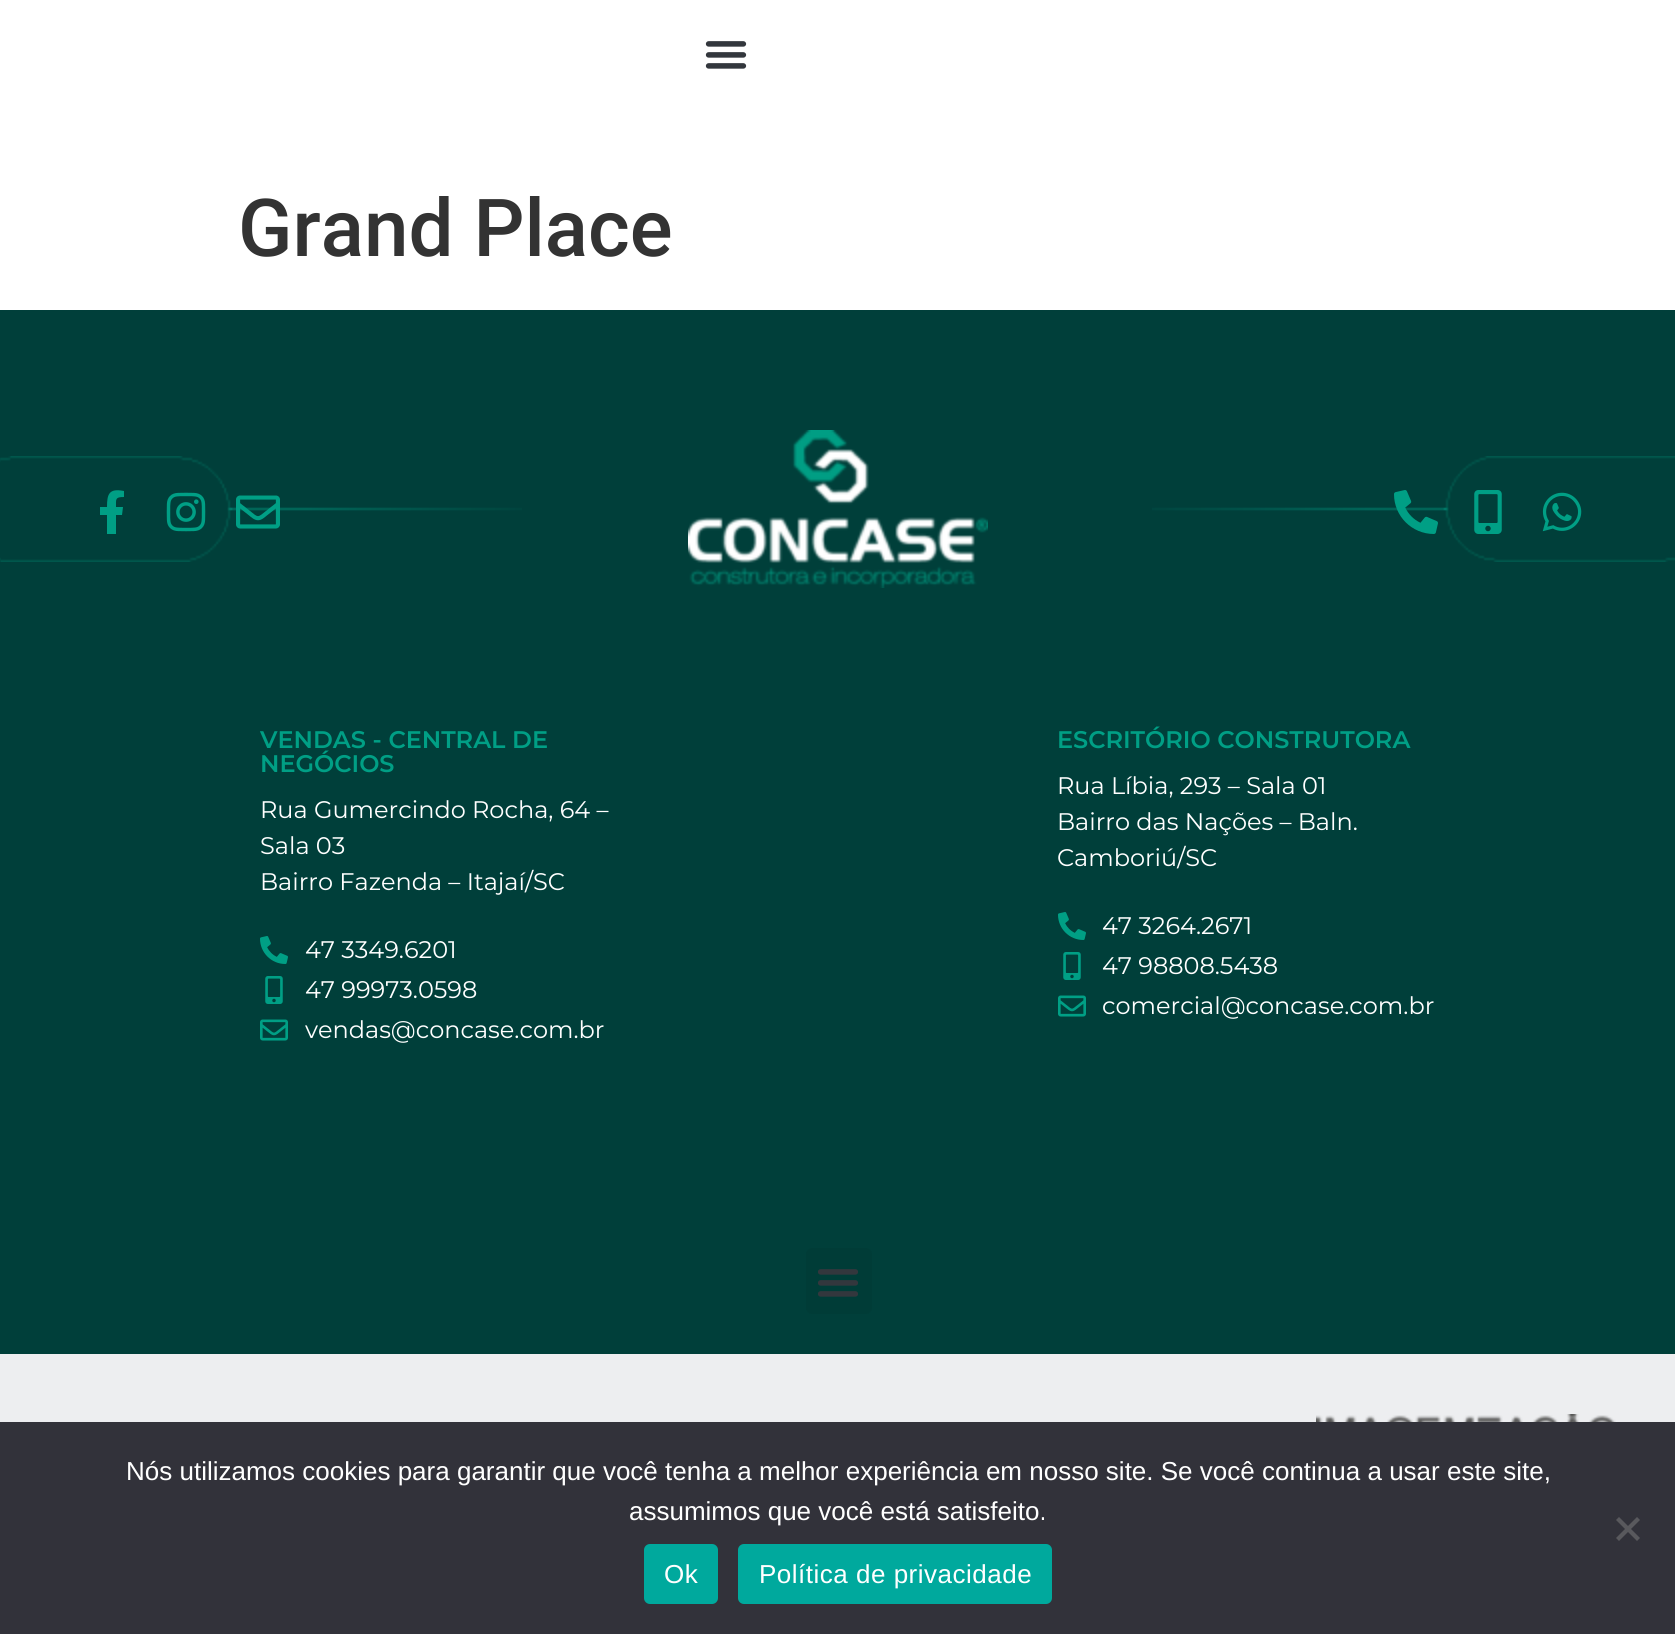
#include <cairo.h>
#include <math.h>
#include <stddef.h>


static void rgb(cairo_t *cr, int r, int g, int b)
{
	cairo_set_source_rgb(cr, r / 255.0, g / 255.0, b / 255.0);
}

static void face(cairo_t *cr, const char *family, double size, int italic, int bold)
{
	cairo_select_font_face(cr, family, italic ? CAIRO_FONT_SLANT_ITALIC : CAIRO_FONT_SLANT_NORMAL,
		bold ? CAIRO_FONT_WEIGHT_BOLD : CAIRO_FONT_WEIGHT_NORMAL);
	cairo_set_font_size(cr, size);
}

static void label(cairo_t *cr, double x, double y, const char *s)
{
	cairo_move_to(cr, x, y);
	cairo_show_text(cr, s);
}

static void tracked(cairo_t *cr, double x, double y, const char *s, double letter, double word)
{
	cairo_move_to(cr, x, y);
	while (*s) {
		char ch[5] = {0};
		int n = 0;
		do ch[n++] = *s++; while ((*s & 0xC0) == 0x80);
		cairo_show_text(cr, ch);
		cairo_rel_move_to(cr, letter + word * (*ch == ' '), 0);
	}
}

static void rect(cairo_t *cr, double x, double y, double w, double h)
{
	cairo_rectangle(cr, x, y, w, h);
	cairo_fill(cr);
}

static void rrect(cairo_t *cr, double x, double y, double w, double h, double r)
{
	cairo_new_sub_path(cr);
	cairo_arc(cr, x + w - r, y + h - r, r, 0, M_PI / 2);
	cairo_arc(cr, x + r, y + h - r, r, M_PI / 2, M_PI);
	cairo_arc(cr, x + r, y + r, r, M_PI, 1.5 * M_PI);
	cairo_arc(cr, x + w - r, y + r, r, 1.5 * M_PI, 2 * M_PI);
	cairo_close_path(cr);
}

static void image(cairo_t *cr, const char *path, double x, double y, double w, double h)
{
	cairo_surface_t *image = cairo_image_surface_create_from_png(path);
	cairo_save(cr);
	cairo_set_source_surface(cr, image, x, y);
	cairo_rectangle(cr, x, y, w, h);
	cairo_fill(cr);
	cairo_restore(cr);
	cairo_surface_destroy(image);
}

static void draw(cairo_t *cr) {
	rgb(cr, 255, 255, 255);
	cairo_paint(cr);
	image(cr, "image0.png", 705, 41, 42, 28);
	face(cr, "Roboto Medium", 80, 0, 0);
	rgb(cr, 51, 51, 51);
	label(cr, 238, 256, "Grand Place");
	rgb(cr, 0, 63, 58);
	rect(cr, 0, 310, 1675, 1044);
	image(cr, "image1.png", 0, 456, 522, 106);
	rgb(cr, 0, 159, 133);
	cairo_new_path(cr);
	cairo_move_to(cr, 122, 515);
	cairo_line_to(cr, 123, 507);
	cairo_line_to(cr, 116, 507);
	cairo_curve_to(cr, 116, 499, 115, 497, 124, 497);
	cairo_line_to(cr, 124, 491);
	cairo_curve_to(cr, 109, 488, 107, 494, 107, 507);
	cairo_line_to(cr, 100, 507);
	cairo_line_to(cr, 100, 515);
	cairo_line_to(cr, 107, 515);
	cairo_line_to(cr, 107, 534);
	cairo_line_to(cr, 116, 534);
	cairo_line_to(cr, 116, 515);
	cairo_close_path(cr);
	cairo_fill(cr);
	image(cr, "image2.png", 166, 492, 40, 40);
	image(cr, "image3.png", 236, 495, 44, 34);
	image(cr, "image4.png", 688, 430, 300, 158);
	image(cr, "image5.png", 1152, 456, 523, 106);
	image(cr, "image6.png", 1394, 490, 44, 44);
	image(cr, "image7.png", 1474, 490, 28, 44);
	image(cr, "image8.png", 1542, 492, 40, 40);
	face(cr, "Montserrat SemiBold", 24, 0, 0);
	label(cr, 260, 748, "VENDAS - CENTRAL DE");
	label(cr, 260, 772, "NEGÓCIOS");
	face(cr, "Montserrat", 24, 0, 0);
	rgb(cr, 255, 255, 255);
	label(cr, 260, 818, "Rua Gumercindo Rocha, 64 –");
	label(cr, 260, 854, "Sala 03");
	label(cr, 260, 890, "Bairro Fazenda – Itajaí/SC");
	image(cr, "image9.png", 260, 936, 28, 28);
	label(cr, 305, 958, "47 3349.6201");
	image(cr, "image10.png", 265, 976, 18, 28);
	label(cr, 305, 998, "47 99973.0598");
	image(cr, "image11.png", 260, 1019, 28, 22);
	label(cr, 305, 1038, "vendas@concase.com.br");
	face(cr, "Montserrat SemiBold", 24, 0, 0);
	rgb(cr, 0, 159, 133);
	label(cr, 1057, 748, "ESCRITÓRIO CONSTRUTORA");
	face(cr, "Montserrat", 24, 0, 0);
	rgb(cr, 255, 255, 255);
	label(cr, 1057, 794, "Rua Líbia, 293 – Sala 01");
	label(cr, 1057, 830, "Bairro das Nações – Baln.");
	label(cr, 1057, 866, "Camboriú/SC");
	image(cr, "image9.png", 1058, 912, 28, 28);
	label(cr, 1102, 934, "47 3264.2671");
	image(cr, "image10.png", 1063, 952, 18, 28);
	label(cr, 1102, 974, "47 98808.5438");
	image(cr, "image11.png", 1058, 995, 28, 22);
	label(cr, 1102, 1014, "comercial@concase.com.br");
	rgb(cr, 0, 60, 55);
	rrect(cr, 806, 1248, 66, 66, 6);
	cairo_fill(cr);
	image(cr, "image12.png", 818, 1269, 40, 28);
	rgb(cr, 237, 238, 240);
	rect(cr, 0, 1354, 1675, 68);
	image(cr, "image13.png", 1316, 1414, 300, 8);
	rgb(cr, 50, 50, 58);
	rect(cr, 0, 1422, 1675, 212);
	face(cr, "Liberation Sans", 26, 0, 0);
	rgb(cr, 255, 255, 255);
	label(cr, 126, 1480, "Nós utilizamos cookies para garantir que você tenha a melhor experiência em nosso site. Se você continua a usar este site,");
	label(cr, 629, 1520, "assumimos que você está satisfeito.");
	rgb(cr, 89, 89, 93);
	cairo_new_path(cr);
	cairo_move_to(cr, 1637, 1517);
	cairo_line_to(cr, 1640, 1520);
	cairo_line_to(cr, 1619, 1541);
	cairo_line_to(cr, 1616, 1538);
	cairo_close_path(cr);
	cairo_fill(cr);
	cairo_new_path(cr);
	cairo_move_to(cr, 1616, 1520);
	cairo_line_to(cr, 1619, 1517);
	cairo_line_to(cr, 1640, 1538);
	cairo_line_to(cr, 1637, 1541);
	cairo_close_path(cr);
	cairo_fill(cr);
	rgb(cr, 0, 169, 157);
	rrect(cr, 644, 1544, 74, 60, 6);
	cairo_fill(cr);
	rgb(cr, 255, 255, 255);
	tracked(cr, 664, 1583, "Ok", 0.5, 0);
	rgb(cr, 0, 169, 157);
	rrect(cr, 738, 1544, 314, 60, 6);
	cairo_fill(cr);
	rgb(cr, 255, 255, 255);
	tracked(cr, 759, 1583, "Política de privacidade", 0.5, 0);
}

int main(void) {
	cairo_surface_t *surface = cairo_image_surface_create(CAIRO_FORMAT_RGB24, 1675, 1634);
	cairo_t *cr = cairo_create(surface);
	cairo_font_options_t *options = cairo_font_options_create();
	cairo_font_options_set_hint_metrics(options, CAIRO_HINT_METRICS_OFF);
	cairo_font_options_set_hint_style(options, CAIRO_HINT_STYLE_NONE);
	cairo_set_font_options(cr, options);
	cairo_set_miter_limit(cr, 4);
	draw(cr);
	cairo_surface_write_to_png(surface, "render.png");
	cairo_font_options_destroy(options);
	cairo_destroy(cr);
	cairo_surface_destroy(surface);
	return 0;
}
